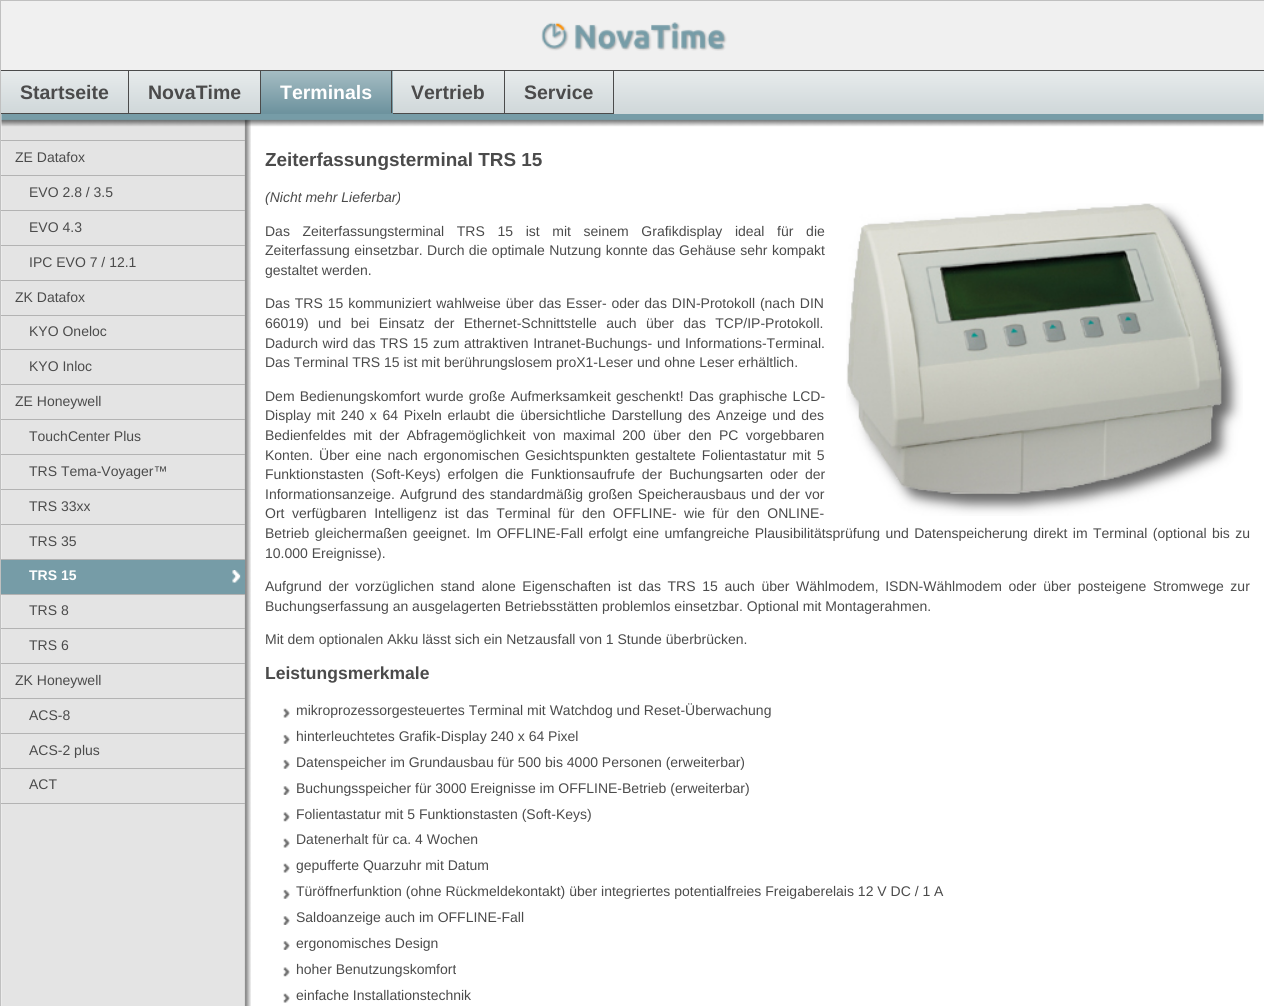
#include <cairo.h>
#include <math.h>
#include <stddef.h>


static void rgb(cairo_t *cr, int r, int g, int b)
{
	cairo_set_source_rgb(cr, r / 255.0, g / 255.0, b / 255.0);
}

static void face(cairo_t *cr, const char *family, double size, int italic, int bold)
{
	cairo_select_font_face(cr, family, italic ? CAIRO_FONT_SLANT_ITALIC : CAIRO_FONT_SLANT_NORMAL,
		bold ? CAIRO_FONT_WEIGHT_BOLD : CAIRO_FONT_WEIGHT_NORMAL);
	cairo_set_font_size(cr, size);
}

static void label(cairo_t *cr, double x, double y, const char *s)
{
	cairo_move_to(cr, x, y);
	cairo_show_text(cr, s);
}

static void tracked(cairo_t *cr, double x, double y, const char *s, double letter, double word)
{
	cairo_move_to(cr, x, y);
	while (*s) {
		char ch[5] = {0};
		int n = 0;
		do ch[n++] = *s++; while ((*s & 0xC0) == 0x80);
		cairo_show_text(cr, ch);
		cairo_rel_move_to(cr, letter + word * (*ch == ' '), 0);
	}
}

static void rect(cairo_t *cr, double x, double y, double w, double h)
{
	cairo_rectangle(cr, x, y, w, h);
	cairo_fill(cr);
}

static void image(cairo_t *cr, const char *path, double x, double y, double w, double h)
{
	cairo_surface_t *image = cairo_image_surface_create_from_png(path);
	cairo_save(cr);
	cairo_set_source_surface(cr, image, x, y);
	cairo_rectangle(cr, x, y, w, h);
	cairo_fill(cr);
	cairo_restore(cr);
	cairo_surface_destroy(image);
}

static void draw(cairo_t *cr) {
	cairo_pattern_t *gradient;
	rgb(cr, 255, 255, 255);
	cairo_paint(cr);
	image(cr, "image0.png", 1, 114, 250, 892);
	cairo_rectangle(cr, 0.5, 0.5, 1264, 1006);
	rgb(cr, 192, 192, 192);
	cairo_set_line_width(cr, 1);
	cairo_stroke(cr);
	rgb(cr, 240, 240, 240);
	rect(cr, 1, 1, 1263, 69);
	image(cr, "image1.png", 541, 22, 186, 29);
	gradient = cairo_pattern_create_linear(633, 71, 633, 114);
	cairo_pattern_add_color_stop_rgba(gradient, 0, 0.906, 0.922, 0.925, 1);
	cairo_pattern_add_color_stop_rgba(gradient, 1, 0.812, 0.843, 0.851, 1);
	cairo_set_source(cr, gradient);
	cairo_pattern_destroy(gradient);
	rect(cr, 1, 71, 1263, 43);
	rgb(cr, 75, 75, 75);
	rect(cr, 1, 70, 1263, 1);
	rect(cr, 128, 71, 1, 43);
	rect(cr, 1, 113, 128, 1);
	face(cr, "Liberation Sans", 19.5, 0, 1);
	label(cr, 20, 99, "Startseite");
	rect(cr, 260, 71, 1, 43);
	rect(cr, 129, 113, 132, 1);
	label(cr, 148, 99, "NovaTime");
	gradient = cairo_pattern_create_linear(326, 71, 326, 113);
	cairo_pattern_add_color_stop_rgba(gradient, 0, 0.647, 0.741, 0.765, 1);
	cairo_pattern_add_color_stop_rgba(gradient, 1, 0.427, 0.576, 0.62, 1);
	cairo_set_source(cr, gradient);
	cairo_pattern_destroy(gradient);
	rect(cr, 261, 71, 132, 42);
	rgb(cr, 75, 75, 75);
	rect(cr, 391, 71, 1, 43);
	rgb(cr, 109, 147, 158);
	rect(cr, 261, 113, 132, 1);
	rgb(cr, 255, 255, 255);
	label(cr, 280, 99, "Terminals");
	rgb(cr, 75, 75, 75);
	rect(cr, 504, 71, 1, 43);
	rect(cr, 393, 113, 112, 1);
	label(cr, 411, 99, "Vertrieb");
	rect(cr, 613, 71, 1, 43);
	rect(cr, 505, 113, 109, 1);
	label(cr, 524, 99, "Service");
	image(cr, "image2.png", 1, 114, 1263, 13);
	rgb(cr, 179, 179, 179);
	rect(cr, 1, 140, 244, 1);
	face(cr, "Liberation Sans", 14, 0, 0);
	rgb(cr, 75, 75, 75);
	label(cr, 15, 162, "ZE Datafox");
	rgb(cr, 179, 179, 179);
	rect(cr, 1, 175, 244, 1);
	rgb(cr, 75, 75, 75);
	label(cr, 29, 197, "EVO 2.8 / 3.5");
	rgb(cr, 179, 179, 179);
	rect(cr, 1, 210, 244, 1);
	rgb(cr, 75, 75, 75);
	label(cr, 29, 232, "EVO 4.3");
	rgb(cr, 179, 179, 179);
	rect(cr, 1, 245, 244, 1);
	rgb(cr, 75, 75, 75);
	label(cr, 29, 267, "IPC EVO 7 / 12.1");
	rgb(cr, 179, 179, 179);
	rect(cr, 1, 280, 244, 1);
	rgb(cr, 75, 75, 75);
	label(cr, 15, 302, "ZK Datafox");
	rgb(cr, 179, 179, 179);
	rect(cr, 1, 315, 244, 1);
	rgb(cr, 75, 75, 75);
	label(cr, 29, 336, "KYO Oneloc");
	rgb(cr, 179, 179, 179);
	rect(cr, 1, 349, 244, 1);
	rgb(cr, 75, 75, 75);
	label(cr, 29, 371, "KYO Inloc");
	rgb(cr, 179, 179, 179);
	rect(cr, 1, 384, 244, 1);
	rgb(cr, 75, 75, 75);
	label(cr, 15, 406, "ZE Honeywell");
	rgb(cr, 179, 179, 179);
	rect(cr, 1, 419, 244, 1);
	rgb(cr, 75, 75, 75);
	label(cr, 29, 441, "TouchCenter Plus");
	rgb(cr, 179, 179, 179);
	rect(cr, 1, 454, 244, 1);
	rgb(cr, 75, 75, 75);
	label(cr, 29, 476, "TRS Tema-Voyager™");
	rgb(cr, 179, 179, 179);
	rect(cr, 1, 489, 244, 1);
	rgb(cr, 75, 75, 75);
	label(cr, 29, 511, "TRS 33xx");
	rgb(cr, 179, 179, 179);
	rect(cr, 1, 524, 244, 1);
	rgb(cr, 75, 75, 75);
	label(cr, 29, 546, "TRS 35");
	rgb(cr, 118, 156, 167);
	rect(cr, 1, 560, 244, 34);
	image(cr, "image3.png", 232, 570, 9, 13);
	rgb(cr, 179, 179, 179);
	rect(cr, 1, 559, 244, 1);
	face(cr, "Liberation Sans", 14, 0, 1);
	rgb(cr, 255, 255, 255);
	label(cr, 29, 580, "TRS 15");
	rgb(cr, 179, 179, 179);
	rect(cr, 1, 594, 244, 1);
	face(cr, "Liberation Sans", 14, 0, 0);
	rgb(cr, 75, 75, 75);
	label(cr, 29, 615, "TRS 8");
	rgb(cr, 179, 179, 179);
	rect(cr, 1, 628, 244, 1);
	rgb(cr, 75, 75, 75);
	label(cr, 29, 650, "TRS 6");
	rgb(cr, 179, 179, 179);
	rect(cr, 1, 663, 244, 1);
	rgb(cr, 75, 75, 75);
	label(cr, 15, 685, "ZK Honeywell");
	rgb(cr, 179, 179, 179);
	rect(cr, 1, 698, 244, 1);
	rgb(cr, 75, 75, 75);
	label(cr, 29, 720, "ACS-8");
	rgb(cr, 179, 179, 179);
	rect(cr, 1, 733, 244, 1);
	rgb(cr, 75, 75, 75);
	label(cr, 29, 755, "ACS-2 plus");
	rgb(cr, 179, 179, 179);
	rect(cr, 1, 803, 244, 1);
	rect(cr, 1, 768, 244, 1);
	rgb(cr, 75, 75, 75);
	label(cr, 29, 789, "ACT");
	face(cr, "Liberation Sans", 18.9, 0, 1);
	label(cr, 265, 166, "Zeiterfassungsterminal TRS 15");
	face(cr, "Liberation Sans", 14, 1, 0);
	label(cr, 265, 202, "(Nicht mehr Lieferbar)");
	face(cr, "Liberation Sans", 14, 0, 0);
	tracked(cr, 265, 236, "Das Zeiterfassungsterminal TRS 15 ist mit seinem Grafikdisplay ideal für die", 0, 8.75);
	tracked(cr, 265, 255, "Zeiterfassung einsetzbar. Durch die optimale Nutzung konnte das Gehäuse sehr kompakt", 0, 0.5);
	label(cr, 265, 275, "gestaltet werden.");
	image(cr, "image4.png", 846, 203, 397, 313);
	tracked(cr, 265, 308, "Das TRS 15 kommuniziert wahlweise über das Esser- oder das DIN-Protokoll (nach DIN", 0, 1);
	tracked(cr, 265, 328, "66019) und bei Einsatz der Ethernet-Schnittstelle auch über das TCP/IP-Protokoll.", 0, 5.5);
	tracked(cr, 265, 348, "Dadurch wird das TRS 15 zum attraktiven Intranet-Buchungs- und Informations-Terminal.", 0, 0.75);
	label(cr, 265, 367, "Das Terminal TRS 15 ist mit berührungslosem proX1-Leser und ohne Leser erhältlich.");
	tracked(cr, 265, 401, "Dem Bedienungskomfort wurde große Aufmerksamkeit geschenkt! Das graphische LCD-", 0, 1.25);
	tracked(cr, 265, 420, "Display mit 240 x 64 Pixeln erlaubt die übersichtliche Darstellung des Anzeige und des", 0, 1.75);
	tracked(cr, 265, 440, "Bedienfeldes mit der Abfragemöglichkeit von maximal 200 über den PC vorgebbaren", 0, 3.4);
	tracked(cr, 265, 460, "Konten. Über eine nach ergonomischen Gesichtspunkten gestaltete Folientastatur mit 5", 0, 1.9);
	tracked(cr, 265, 479, "Funktionstasten (Soft-Keys) erfolgen die Funktionsaufrufe der Buchungsarten oder der", 0, 3);
	tracked(cr, 265, 499, "Informationsanzeige. Aufgrund des standardmäßig großen Speicherausbaus und der vor", 0, 1.25);
	tracked(cr, 265, 518, "Ort verfügbaren Intelligenz ist das Terminal für den OFFLINE- wie für den ONLINE-", 0, 3.6);
	tracked(cr, 265, 538, "Betrieb gleichermaßen geeignet. Im OFFLINE-Fall erfolgt eine umfangreiche Plausibilitätsprüfung und Datenspeicherung direkt im Terminal (optional bis zu", 0, 1.5);
	label(cr, 265, 558, "10.000 Ereignisse).");
	tracked(cr, 265, 591, "Aufgrund der vorzüglichen stand alone Eigenschaften ist das TRS 15 auch über Wählmodem, ISDN-Wählmodem oder über posteigene Stromwege zur", 0, 2.75);
	label(cr, 265, 611, "Buchungserfassung an ausgelagerten Betriebsstätten problemlos einsetzbar. Optional mit Montagerahmen.");
	label(cr, 265, 644, "Mit dem optionalen Akku lässt sich ein Netzausfall von 1 Stunde überbrücken.");
	face(cr, "Liberation Sans", 17.5, 0, 1);
	label(cr, 265, 679, "Leistungsmerkmale");
	image(cr, "image5.png", 283, 708, 7, 10);
	face(cr, "Liberation Sans", 14, 0, 0);
	label(cr, 296, 715, "mikroprozessorgesteuertes Terminal mit Watchdog und Reset-Überwachung");
	image(cr, "image6.png", 283, 734, 7, 10);
	label(cr, 296, 741, "hinterleuchtetes Grafik-Display 240 x 64 Pixel");
	image(cr, "image6.png", 283, 759, 7, 10);
	label(cr, 296, 767, "Datenspeicher im Grundausbau für 500 bis 4000 Personen (erweiterbar)");
	image(cr, "image7.png", 283, 786, 7, 9);
	label(cr, 296, 793, "Buchungsspeicher für 3000 Ereignisse im OFFLINE-Betrieb (erweiterbar)");
	image(cr, "image8.png", 283, 812, 7, 10);
	label(cr, 296, 819, "Folientastatur mit 5 Funktionstasten (Soft-Keys)");
	image(cr, "image5.png", 283, 838, 7, 10);
	label(cr, 296, 844, "Datenerhalt für ca. 4 Wochen");
	image(cr, "image5.png", 283, 863, 7, 10);
	label(cr, 296, 870, "gepufferte Quarzuhr mit Datum");
	image(cr, "image6.png", 283, 889, 7, 10);
	label(cr, 296, 896, "Türöffnerfunktion (ohne Rückmeldekontakt) über integriertes potentialfreies Freigaberelais 12 V DC / 1 A");
	image(cr, "image9.png", 283, 916, 7, 9);
	label(cr, 296, 922, "Saldoanzeige auch im OFFLINE-Fall");
	image(cr, "image9.png", 283, 941, 7, 9);
	label(cr, 296, 948, "ergonomisches Design");
	image(cr, "image8.png", 283, 967, 7, 10);
	label(cr, 296, 974, "hoher Benutzungskomfort");
	image(cr, "image5.png", 283, 993, 7, 10);
	label(cr, 296, 1000, "einfache Installationstechnik");
}

int main(void) {
	cairo_surface_t *surface = cairo_image_surface_create(CAIRO_FORMAT_RGB24, 1264, 1006);
	cairo_t *cr = cairo_create(surface);
	cairo_font_options_t *options = cairo_font_options_create();
	cairo_font_options_set_hint_metrics(options, CAIRO_HINT_METRICS_OFF);
	cairo_font_options_set_hint_style(options, CAIRO_HINT_STYLE_NONE);
	cairo_set_font_options(cr, options);
	cairo_set_miter_limit(cr, 4);
	draw(cr);
	cairo_surface_write_to_png(surface, "render.png");
	cairo_font_options_destroy(options);
	cairo_destroy(cr);
	cairo_surface_destroy(surface);
	return 0;
}
